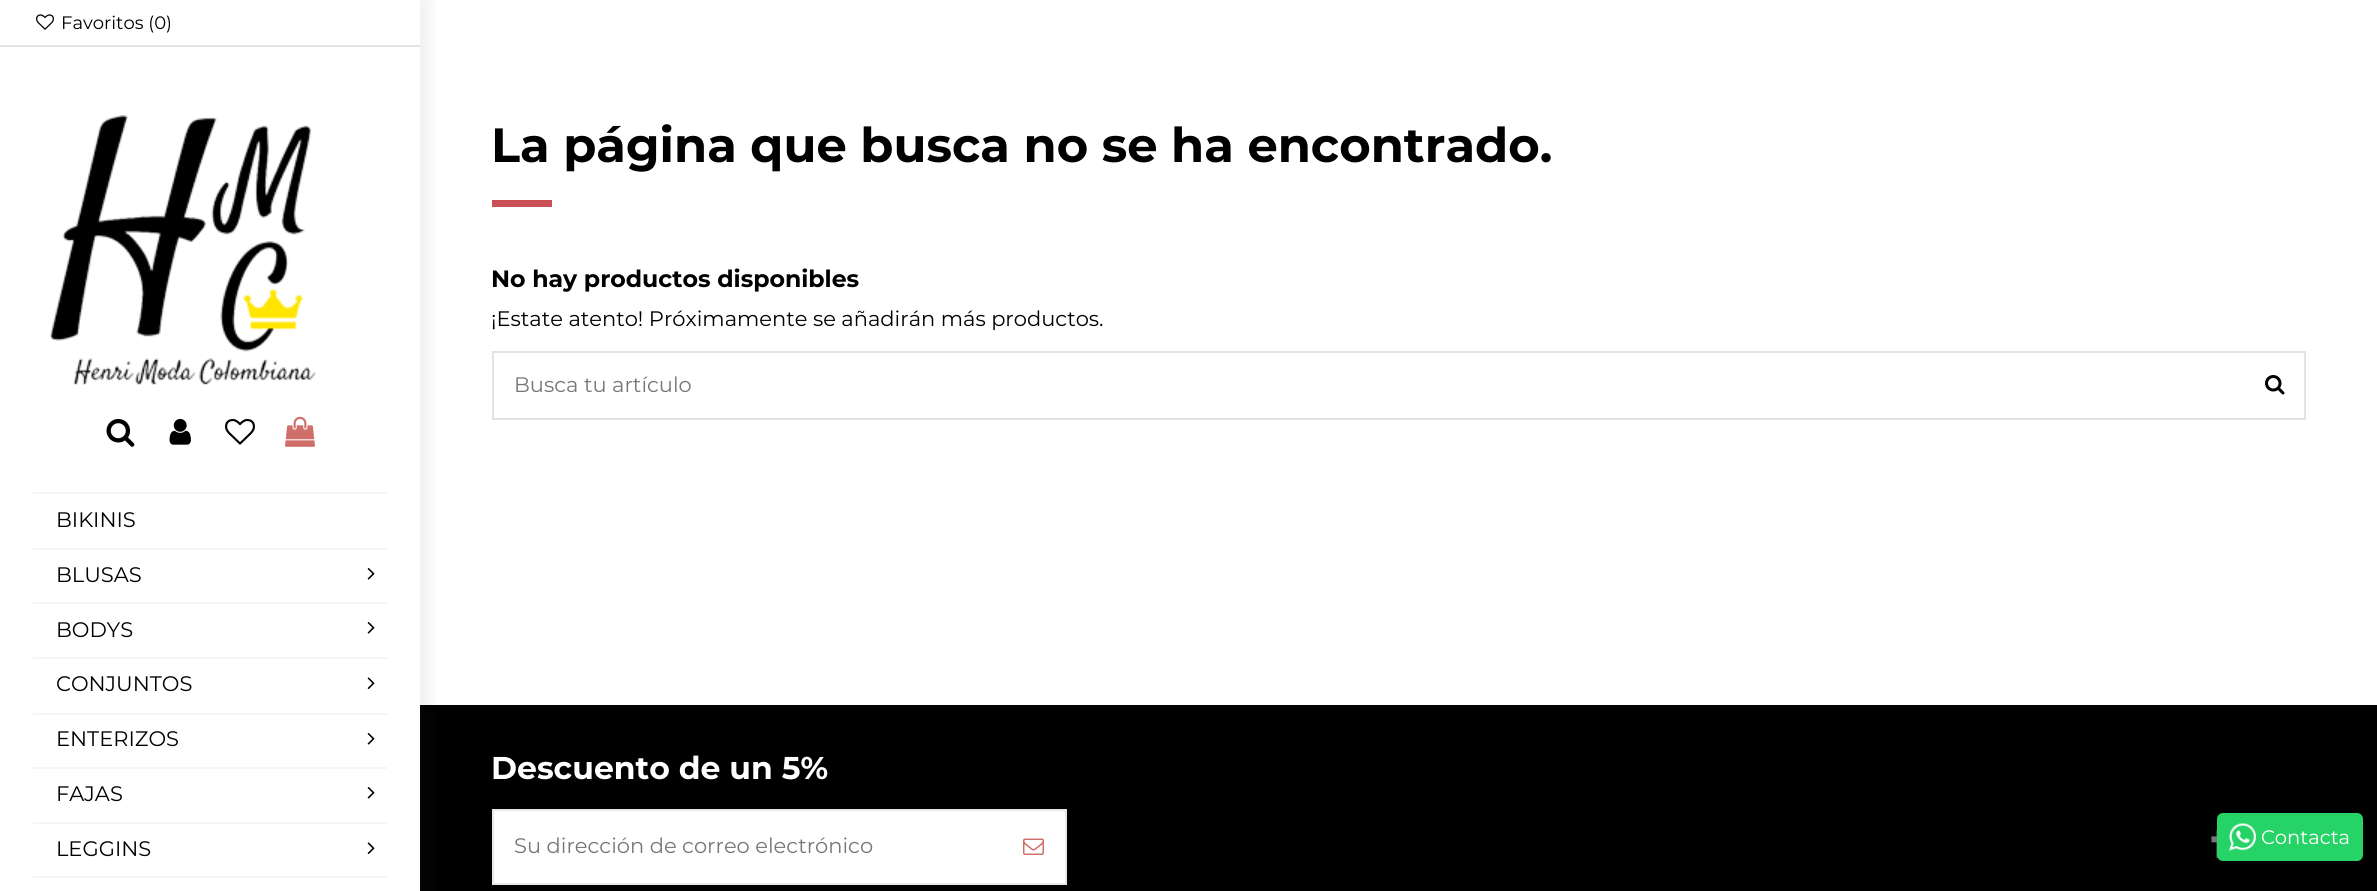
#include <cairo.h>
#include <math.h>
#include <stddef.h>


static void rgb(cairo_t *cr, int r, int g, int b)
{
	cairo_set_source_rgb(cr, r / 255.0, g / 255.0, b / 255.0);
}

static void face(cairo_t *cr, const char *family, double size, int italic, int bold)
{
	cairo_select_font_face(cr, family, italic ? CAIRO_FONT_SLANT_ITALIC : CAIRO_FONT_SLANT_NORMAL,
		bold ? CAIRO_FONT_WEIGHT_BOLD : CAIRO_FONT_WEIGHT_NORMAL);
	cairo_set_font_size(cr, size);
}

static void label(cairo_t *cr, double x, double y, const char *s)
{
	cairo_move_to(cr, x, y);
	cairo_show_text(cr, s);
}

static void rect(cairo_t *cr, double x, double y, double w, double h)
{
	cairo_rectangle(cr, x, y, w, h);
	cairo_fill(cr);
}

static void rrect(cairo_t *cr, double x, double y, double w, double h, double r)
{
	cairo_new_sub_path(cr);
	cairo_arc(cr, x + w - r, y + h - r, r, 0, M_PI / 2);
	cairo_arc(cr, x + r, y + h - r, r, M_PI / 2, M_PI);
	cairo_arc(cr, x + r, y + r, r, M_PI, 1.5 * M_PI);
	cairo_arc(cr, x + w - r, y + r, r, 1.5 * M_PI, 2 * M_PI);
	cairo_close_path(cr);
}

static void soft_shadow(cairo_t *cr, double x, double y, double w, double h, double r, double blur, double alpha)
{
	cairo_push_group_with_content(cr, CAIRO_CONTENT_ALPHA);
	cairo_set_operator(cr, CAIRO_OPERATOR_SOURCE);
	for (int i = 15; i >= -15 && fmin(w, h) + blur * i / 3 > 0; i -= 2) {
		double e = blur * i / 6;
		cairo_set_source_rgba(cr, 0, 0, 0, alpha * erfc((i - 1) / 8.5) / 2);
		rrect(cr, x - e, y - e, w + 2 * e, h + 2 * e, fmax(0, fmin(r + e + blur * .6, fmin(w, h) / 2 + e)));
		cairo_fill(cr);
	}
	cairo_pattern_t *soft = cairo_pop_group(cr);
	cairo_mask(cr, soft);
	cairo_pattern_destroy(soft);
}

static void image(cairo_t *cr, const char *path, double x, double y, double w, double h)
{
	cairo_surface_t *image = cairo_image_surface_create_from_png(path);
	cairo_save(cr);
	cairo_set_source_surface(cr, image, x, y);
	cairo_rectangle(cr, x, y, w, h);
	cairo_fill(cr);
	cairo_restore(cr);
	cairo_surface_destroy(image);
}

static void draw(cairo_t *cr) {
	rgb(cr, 255, 255, 255);
	cairo_paint(cr);
	rgb(cr, 0, 0, 0);
	rect(cr, 420, 705, 1957, 186);
	cairo_save(cr);
	cairo_rectangle(cr, 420, 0, 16, 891);
	cairo_clip(cr);
	rgb(cr, 61, 57, 57);
	soft_shadow(cr, 8, 0, 420, 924, 0, 11, 0.09);
	cairo_restore(cr);
	rgb(cr, 227, 227, 227);
	rect(cr, 0, 45, 420, 2);
	image(cr, "image0.png", 36, 14, 18, 16);
	face(cr, "Montserrat", 18, 0, 0);
	rgb(cr, 0, 0, 0);
	label(cr, 61, 29, "Favoritos (0)");
	image(cr, "image1.png", 50, 115, 266, 270);
	image(cr, "image2.png", 106, 418, 29, 29);
	image(cr, "image3.png", 169, 418, 22, 27);
	image(cr, "image4.png", 225, 418, 30, 27);
	image(cr, "image5.png", 285, 416, 30, 31);
	rgb(cr, 245, 245, 245);
	rect(cr, 33, 492, 354, 2);
	face(cr, "Montserrat", 21, 0, 0);
	rgb(cr, 0, 0, 0);
	label(cr, 56, 527, "BIKINIS");
	rgb(cr, 245, 245, 245);
	rect(cr, 33, 548, 354, 2);
	rgb(cr, 0, 0, 0);
	label(cr, 56, 582, "BLUSAS");
	image(cr, "image6.png", 367, 568, 8, 12);
	rgb(cr, 245, 245, 245);
	rect(cr, 33, 602, 354, 2);
	rgb(cr, 0, 0, 0);
	label(cr, 56, 637, "BODYS");
	image(cr, "image6.png", 367, 622, 8, 12);
	rgb(cr, 245, 245, 245);
	rect(cr, 33, 657, 354, 2);
	rgb(cr, 0, 0, 0);
	label(cr, 56, 691, "CONJUNTOS");
	image(cr, "image7.png", 367, 677, 8, 12);
	rgb(cr, 245, 245, 245);
	rect(cr, 33, 713, 354, 2);
	rgb(cr, 0, 0, 0);
	label(cr, 56, 746, "ENTERIZOS");
	image(cr, "image6.png", 367, 733, 8, 12);
	rgb(cr, 245, 245, 245);
	rect(cr, 33, 767, 354, 2);
	rgb(cr, 0, 0, 0);
	label(cr, 56, 801, "FAJAS");
	image(cr, "image6.png", 367, 787, 8, 12);
	rgb(cr, 245, 245, 245);
	rect(cr, 33, 822, 354, 2);
	rgb(cr, 0, 0, 0);
	label(cr, 56, 856, "LEGGINS");
	image(cr, "image7.png", 367, 842, 8, 12);
	rgb(cr, 245, 245, 245);
	rect(cr, 33, 876, 354, 2);
	face(cr, "Montserrat", 48, 0, 1);
	rgb(cr, 0, 0, 0);
	label(cr, 491, 162, "La página que busca no se ha encontrado.");
	rgb(cr, 202, 80, 88);
	rect(cr, 492, 200, 60, 7);
	face(cr, "Montserrat", 23.6, 0, 1);
	rgb(cr, 0, 0, 0);
	label(cr, 491, 287, "No hay productos disponibles");
	face(cr, "Montserrat", 21, 0, 0);
	label(cr, 491, 326, "¡Estate atento! Próximamente se añadirán más productos.");
	cairo_rectangle(cr, 493, 352, 1812, 67);
	rgb(cr, 227, 227, 227);
	cairo_stroke(cr);
	rgb(cr, 119, 119, 119);
	label(cr, 514, 392, "Busca tu artículo");
	image(cr, "image8.png", 2265, 375, 20, 20);
	face(cr, "Montserrat", 31.5, 0, 1);
	rgb(cr, 255, 255, 255);
	label(cr, 491, 779, "Descuento de un 5%");
	cairo_rectangle(cr, 493, 810, 573, 74);
	cairo_fill_preserve(cr);
	rgb(cr, 232, 232, 232);
	cairo_stroke(cr);
	face(cr, "Montserrat", 21, 0, 0);
	rgb(cr, 119, 119, 119);
	label(cr, 514, 853, "Su dirección de correo electrónico");
	image(cr, "image9.png", 1023, 838, 21, 17);
	image(cr, "image10.png", 2211, 829, 7, 29);
	rgb(cr, 37, 211, 102);
	rrect(cr, 2217, 813, 146, 48, 6);
	cairo_fill(cr);
	image(cr, "image11.png", 2229, 823, 27, 28);
	face(cr, "Montserrat", 19.5, 0, 0);
	rgb(cr, 255, 255, 255);
	label(cr, 2261, 844, "Contacta");
}

int main(void) {
	cairo_surface_t *surface = cairo_image_surface_create(CAIRO_FORMAT_RGB24, 2377, 891);
	cairo_t *cr = cairo_create(surface);
	cairo_font_options_t *options = cairo_font_options_create();
	cairo_font_options_set_hint_metrics(options, CAIRO_HINT_METRICS_OFF);
	cairo_font_options_set_hint_style(options, CAIRO_HINT_STYLE_NONE);
	cairo_set_font_options(cr, options);
	cairo_set_miter_limit(cr, 4);
	draw(cr);
	cairo_surface_write_to_png(surface, "render.png");
	cairo_font_options_destroy(options);
	cairo_destroy(cr);
	cairo_surface_destroy(surface);
	return 0;
}
